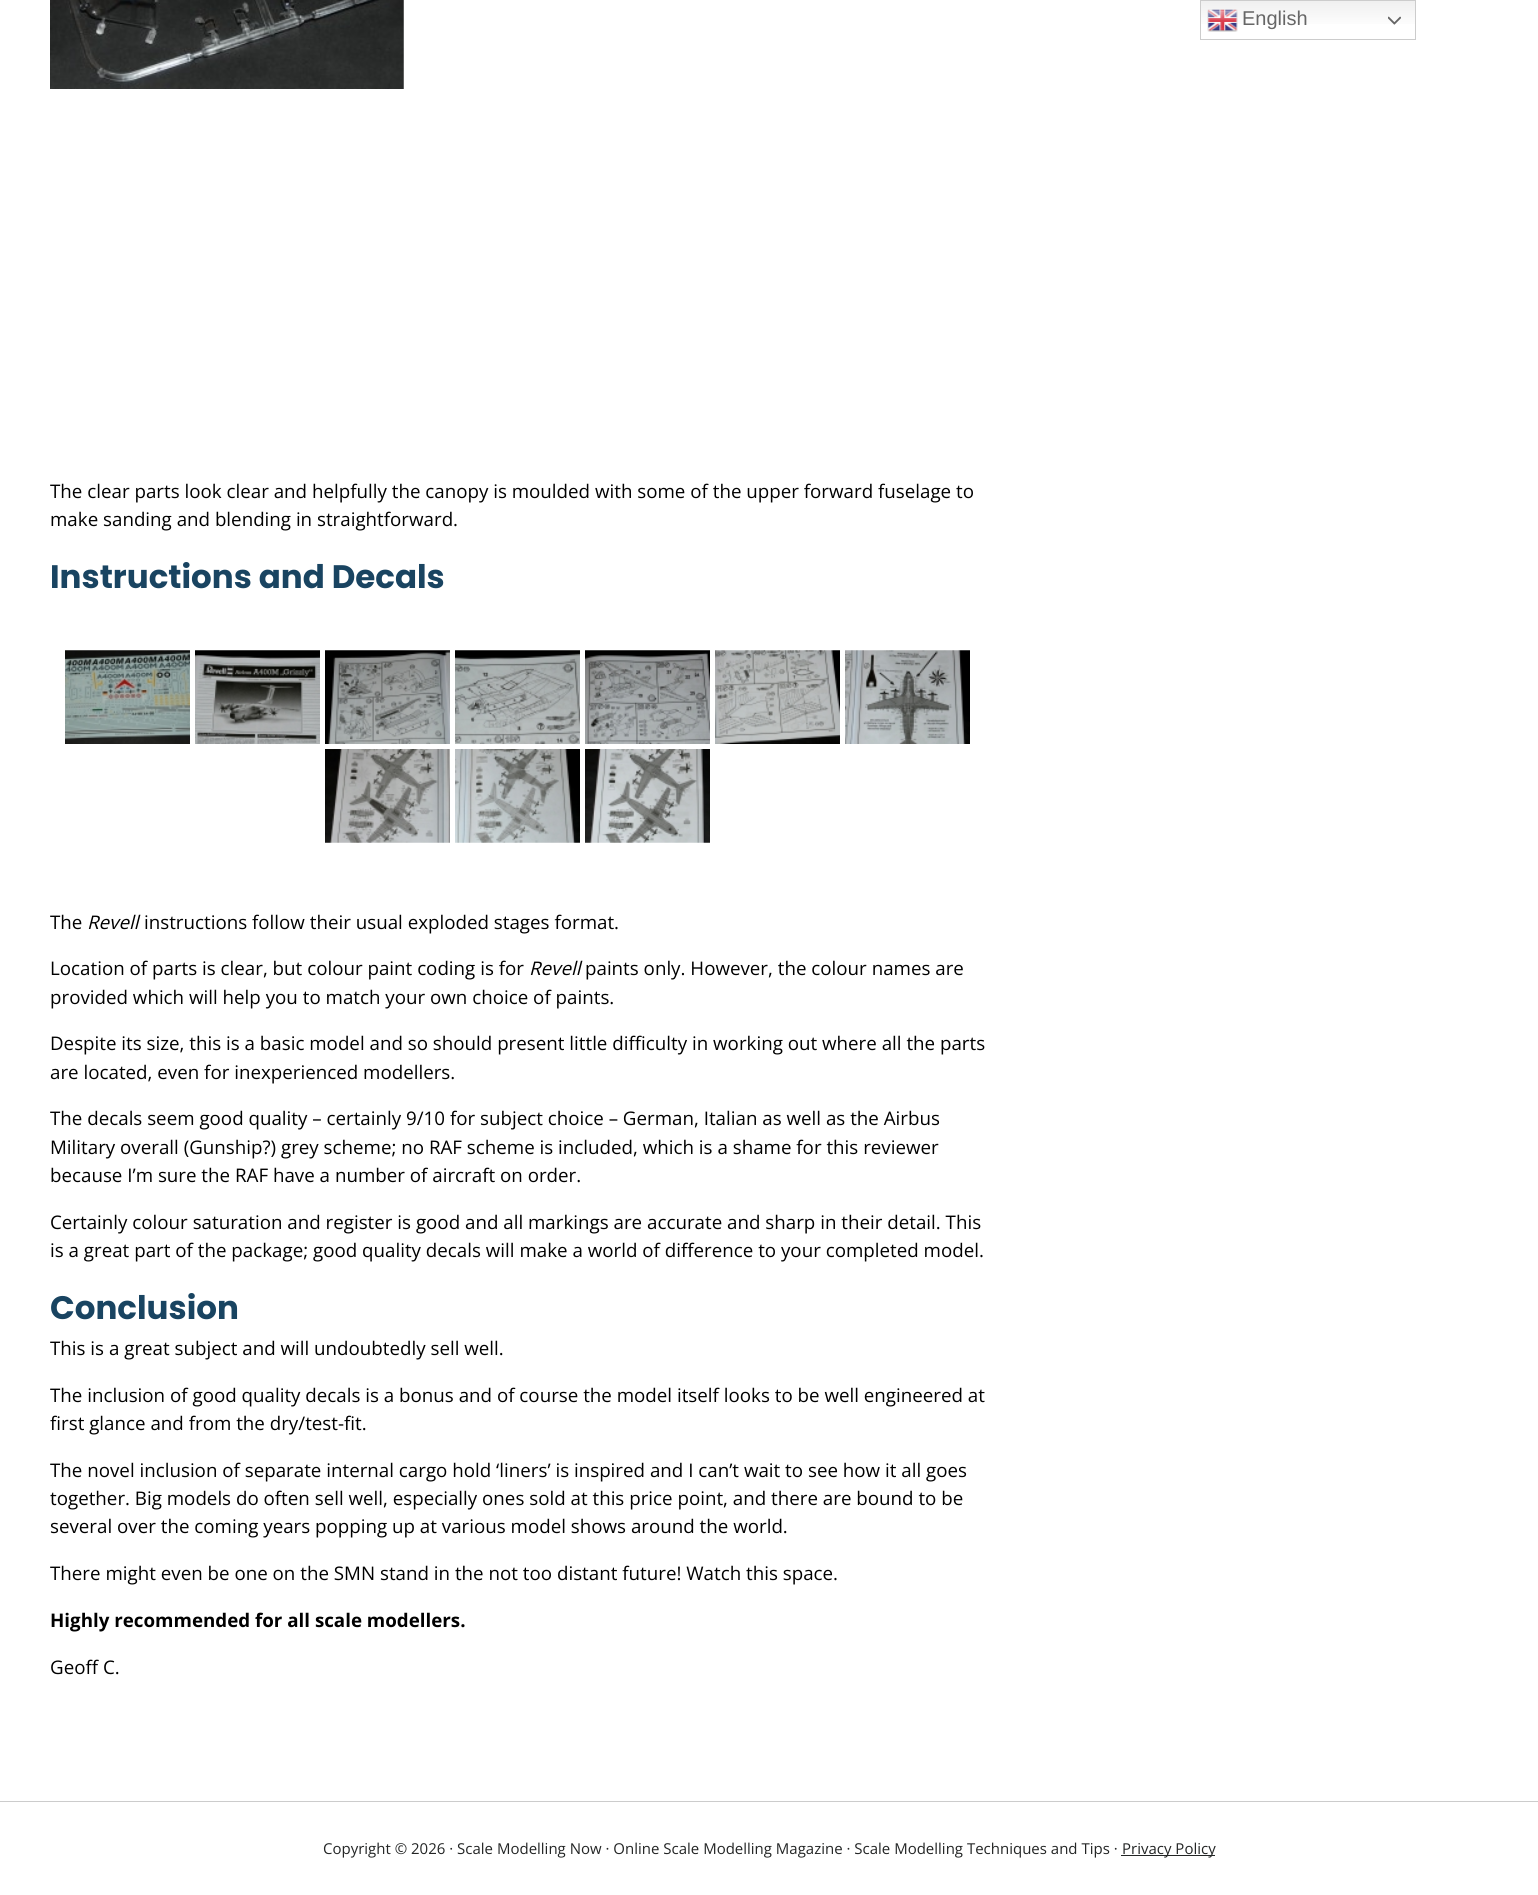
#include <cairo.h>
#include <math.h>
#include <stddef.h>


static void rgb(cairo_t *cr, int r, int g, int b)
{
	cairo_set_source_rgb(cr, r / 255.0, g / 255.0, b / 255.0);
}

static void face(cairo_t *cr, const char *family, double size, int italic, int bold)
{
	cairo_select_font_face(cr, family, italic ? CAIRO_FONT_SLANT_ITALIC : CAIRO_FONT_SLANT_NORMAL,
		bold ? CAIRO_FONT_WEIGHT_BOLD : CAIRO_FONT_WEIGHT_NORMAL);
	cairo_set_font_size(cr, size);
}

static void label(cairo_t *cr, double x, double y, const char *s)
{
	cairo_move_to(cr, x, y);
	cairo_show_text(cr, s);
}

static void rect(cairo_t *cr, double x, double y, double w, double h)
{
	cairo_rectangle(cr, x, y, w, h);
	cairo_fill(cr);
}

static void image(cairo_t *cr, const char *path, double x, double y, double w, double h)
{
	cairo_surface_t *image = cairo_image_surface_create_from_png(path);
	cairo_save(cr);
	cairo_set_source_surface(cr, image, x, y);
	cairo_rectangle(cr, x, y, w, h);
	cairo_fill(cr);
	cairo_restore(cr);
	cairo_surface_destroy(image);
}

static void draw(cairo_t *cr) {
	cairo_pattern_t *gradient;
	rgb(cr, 255, 255, 255);
	cairo_paint(cr);
	gradient = cairo_pattern_create_linear(1308, 0, 1308, 40);
	cairo_pattern_add_color_stop_rgba(gradient, 0, 0.937, 0.937, 0.937, 1);
	cairo_pattern_add_color_stop_rgba(gradient, 0.7, 1, 1, 1, 1);
	cairo_set_source(cr, gradient);
	cairo_pattern_destroy(gradient);
	rect(cr, 1201, 1, 214, 23);
	cairo_rectangle(cr, 1200.5, 0.5, 215, 39);
	rgb(cr, 204, 204, 204);
	cairo_set_line_width(cr, 1);
	cairo_stroke(cr);
	image(cr, "image0.png", 1207, 9, 31, 23);
	face(cr, "Liberation Sans", 20, 0, 0);
	rgb(cr, 102, 102, 102);
	label(cr, 1242, 25, "English");
	image(cr, "image1.png", 1388, 16, 13, 9);
	image(cr, "image2.png", 50, 0, 354, 89);
	face(cr, "Open Sans", 18.75, 0, 0);
	rgb(cr, 0, 0, 0);
	label(cr, 50, 498, "The clear parts look clear and helpfully the canopy is moulded with some of the upper forward fuselage to");
	label(cr, 50, 526, "make sanding and blending in straightforward.");
	face(cr, "Poppins", 32.5, 0, 1);
	rgb(cr, 25, 68, 97);
	label(cr, 50, 588, "Instructions and Decals");
	image(cr, "image3.png", 65, 650, 125, 94);
	image(cr, "image4.png", 195, 650, 125, 94);
	image(cr, "image5.png", 325, 650, 125, 94);
	image(cr, "image6.png", 455, 650, 125, 94);
	image(cr, "image7.png", 585, 650, 125, 94);
	image(cr, "image8.png", 715, 650, 125, 94);
	image(cr, "image9.png", 845, 650, 125, 94);
	image(cr, "image10.png", 325, 749, 125, 94);
	image(cr, "image11.png", 455, 749, 125, 94);
	image(cr, "image12.png", 585, 749, 125, 94);
	face(cr, "Open Sans", 18.75, 0, 0);
	rgb(cr, 0, 0, 0);
	label(cr, 50, 929, "The");
	face(cr, "Open Sans", 18.75, 1, 0);
	label(cr, 87, 929, "Revell");
	face(cr, "Open Sans", 18.75, 0, 0);
	label(cr, 144, 929, "instructions follow their usual exploded stages format.");
	label(cr, 50, 975, "Location of parts is clear, but colour paint coding is for");
	face(cr, "Open Sans", 18.75, 1, 0);
	label(cr, 529, 975, "Revell");
	face(cr, "Open Sans", 18.75, 0, 0);
	label(cr, 585, 975, "paints only. However, the colour names are");
	label(cr, 50, 1004, "provided which will help you to match your own choice of paints.");
	label(cr, 50, 1050, "Despite its size, this is a basic model and so should present little difficulty in working out where all the parts");
	label(cr, 50, 1079, "are located, even for inexperienced modellers.");
	label(cr, 50, 1125, "The decals seem good quality – certainly 9/10 for subject choice – German, Italian as well as the Airbus");
	label(cr, 50, 1154, "Military overall (Gunship?) grey scheme; no RAF scheme is included, which is a shame for this reviewer");
	label(cr, 50, 1182, "because I’m sure the RAF have a number of aircraft on order.");
	label(cr, 50, 1229, "Certainly colour saturation and register is good and all markings are accurate and sharp in their detail. This");
	label(cr, 50, 1257, "is a great part of the package; good quality decals will make a world of difference to your completed model.");
	face(cr, "Poppins", 32.5, 0, 1);
	rgb(cr, 25, 68, 97);
	label(cr, 50, 1319, "Conclusion");
	face(cr, "Open Sans", 18.75, 0, 0);
	rgb(cr, 0, 0, 0);
	label(cr, 50, 1355, "This is a great subject and will undoubtedly sell well.");
	label(cr, 50, 1402, "The inclusion of good quality decals is a bonus and of course the model itself looks to be well engineered at");
	label(cr, 50, 1430, "first glance and from the dry/test-fit.");
	label(cr, 50, 1477, "The novel inclusion of separate internal cargo hold ‘liners’ is inspired and I can’t wait to see how it all goes");
	label(cr, 50, 1505, "together. Big models do often sell well, especially ones sold at this price point, and there are bound to be");
	label(cr, 50, 1533, "several over the coming years popping up at various model shows around the world.");
	label(cr, 50, 1580, "There might even be one on the SMN stand in the not too distant future! Watch this space.");
	face(cr, "Open Sans", 18.75, 0, 1);
	label(cr, 50, 1627, "Highly recommended for all scale modellers.");
	face(cr, "Open Sans", 18.75, 0, 0);
	label(cr, 50, 1674, "Geoff C.");
	rgb(cr, 204, 204, 204);
	rect(cr, 0, 1801, 1538, 1);
	face(cr, "Open Sans", 15, 0, 0);
	rgb(cr, 35, 37, 37);
	label(cr, 323, 1854, "Copyright © 2026 · Scale Modelling Now · Online Scale Modelling Magazine · Scale Modelling Techniques and Tips ·");
	rect(cr, 1121, 1855, 94, 1);
	label(cr, 1122, 1854, "Privacy Policy");
}

int main(void) {
	cairo_surface_t *surface = cairo_image_surface_create(CAIRO_FORMAT_RGB24, 1538, 1895);
	cairo_t *cr = cairo_create(surface);
	cairo_font_options_t *options = cairo_font_options_create();
	cairo_font_options_set_hint_metrics(options, CAIRO_HINT_METRICS_OFF);
	cairo_font_options_set_hint_style(options, CAIRO_HINT_STYLE_NONE);
	cairo_set_font_options(cr, options);
	cairo_set_miter_limit(cr, 4);
	draw(cr);
	cairo_surface_write_to_png(surface, "render.png");
	cairo_font_options_destroy(options);
	cairo_destroy(cr);
	cairo_surface_destroy(surface);
	return 0;
}
